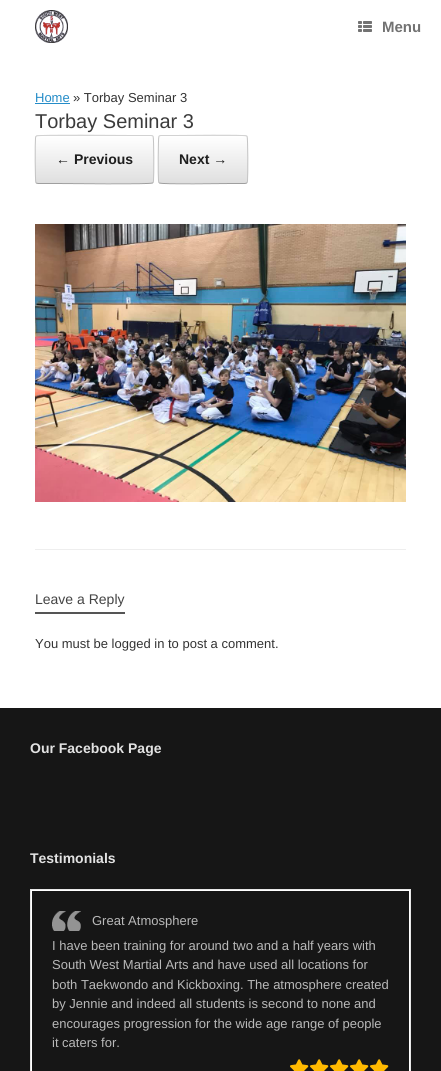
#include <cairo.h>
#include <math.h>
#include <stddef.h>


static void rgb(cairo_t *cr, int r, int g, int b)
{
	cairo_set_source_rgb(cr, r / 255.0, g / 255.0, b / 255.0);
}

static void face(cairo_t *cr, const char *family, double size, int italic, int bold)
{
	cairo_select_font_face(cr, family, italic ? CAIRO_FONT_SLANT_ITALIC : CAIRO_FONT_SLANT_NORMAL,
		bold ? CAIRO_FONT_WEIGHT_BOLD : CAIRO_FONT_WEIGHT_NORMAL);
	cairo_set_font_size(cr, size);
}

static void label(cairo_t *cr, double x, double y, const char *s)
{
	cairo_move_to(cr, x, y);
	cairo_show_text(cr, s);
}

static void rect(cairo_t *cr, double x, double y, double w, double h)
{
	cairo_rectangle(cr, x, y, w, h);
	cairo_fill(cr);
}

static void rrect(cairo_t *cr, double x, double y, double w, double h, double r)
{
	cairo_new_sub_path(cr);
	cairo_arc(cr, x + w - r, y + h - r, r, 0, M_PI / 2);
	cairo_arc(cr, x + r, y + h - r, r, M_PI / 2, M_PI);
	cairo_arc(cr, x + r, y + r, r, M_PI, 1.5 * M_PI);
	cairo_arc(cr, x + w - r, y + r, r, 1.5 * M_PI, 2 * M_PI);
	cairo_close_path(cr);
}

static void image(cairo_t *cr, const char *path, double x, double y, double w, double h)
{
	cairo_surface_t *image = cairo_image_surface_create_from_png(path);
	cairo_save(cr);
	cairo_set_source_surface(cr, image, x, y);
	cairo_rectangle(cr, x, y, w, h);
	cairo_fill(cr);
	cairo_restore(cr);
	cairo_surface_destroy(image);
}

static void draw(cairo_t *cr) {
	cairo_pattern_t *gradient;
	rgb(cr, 22, 22, 22);
	cairo_paint(cr);
	rgb(cr, 255, 255, 255);
	rect(cr, 0, 0, 441, 708);
	image(cr, "image0.png", 35, 10, 33, 33);
	image(cr, "image1.png", 358, 21, 14, 11);
	face(cr, "Liberation Sans", 15, 0, 1);
	rgb(cr, 114, 114, 114);
	label(cr, 382, 32, "Menu");
	face(cr, "Liberation Sans", 13, 0, 0);
	rgb(cr, 36, 140, 200);
	label(cr, 35, 102, "Home");
	rect(cr, 35, 103, 35, 1);
	rgb(cr, 51, 51, 51);
	label(cr, 73, 102, "» Torbay Seminar 3");
	rgb(cr, 238, 238, 238);
	rect(cr, 35, 549, 371, 1);
	face(cr, "Liberation Sans", 20, 0, 0);
	rgb(cr, 59, 59, 59);
	label(cr, 35, 128, "Torbay Seminar 3");
	cairo_save(cr);
	rrect(cr, 35, 135, 119, 49, 3);
	cairo_clip(cr);
	gradient = cairo_pattern_create_linear(36, 136, 36, 89);
	cairo_pattern_add_color_stop_rgba(gradient, 0, 0.875, 0.875, 0.875, 1);
	cairo_pattern_add_color_stop_rgba(gradient, 1, 1, 1, 1, 1);
	cairo_set_source(cr, gradient);
	cairo_pattern_destroy(gradient);
	rect(cr, 35, 135, 119, 1);
	gradient = cairo_pattern_create_linear(36, 183, 36, 136);
	cairo_pattern_add_color_stop_rgba(gradient, 0, 0.875, 0.875, 0.875, 1);
	cairo_pattern_add_color_stop_rgba(gradient, 1, 1, 1, 1, 1);
	cairo_set_source(cr, gradient);
	cairo_pattern_destroy(gradient);
	rect(cr, 35, 136, 119, 47);
	cairo_restore(cr);
	cairo_new_path(cr);
	cairo_move_to(cr, 36, 136);
	cairo_line_to(cr, 36.5, 136);
	cairo_curve_to(cr, 38.5, 134.5, 122.5, 135.5, 132, 135.5);
	cairo_line_to(cr, 151, 135.5);
	cairo_line_to(cr, 153, 136);
	rgb(cr, 210, 210, 210);
	cairo_set_line_width(cr, 1);
	cairo_stroke(cr);
	cairo_new_path(cr);
	cairo_move_to(cr, 153, 136);
	cairo_curve_to(cr, 154, 137.5, 154, 177, 153.5, 181);
	cairo_line_to(cr, 153, 183);
	rgb(cr, 195, 195, 195);
	cairo_stroke(cr);
	cairo_new_path(cr);
	cairo_move_to(cr, 153, 183);
	cairo_line_to(cr, 152.5, 183);
	cairo_curve_to(cr, 150.5, 184.5, 66.5, 183.5, 57, 183.5);
	cairo_line_to(cr, 38, 183.5);
	cairo_line_to(cr, 36, 183);
	rgb(cr, 159, 159, 159);
	cairo_stroke(cr);
	cairo_new_path(cr);
	cairo_move_to(cr, 36, 183);
	cairo_curve_to(cr, 35, 181.5, 35, 142, 35.5, 138);
	cairo_line_to(cr, 36, 136);
	rgb(cr, 195, 195, 195);
	cairo_stroke(cr);
	face(cr, "Liberation Sans", 14, 0, 1);
	rgb(cr, 30, 30, 30);
	label(cr, 56, 164, "← Previous");
	cairo_save(cr);
	rrect(cr, 158, 135, 90, 49, 3);
	cairo_clip(cr);
	gradient = cairo_pattern_create_linear(159, 136, 159, 89);
	cairo_pattern_add_color_stop_rgba(gradient, 0, 0.875, 0.875, 0.875, 1);
	cairo_pattern_add_color_stop_rgba(gradient, 1, 1, 1, 1, 1);
	cairo_set_source(cr, gradient);
	cairo_pattern_destroy(gradient);
	rect(cr, 158, 135, 90, 1);
	gradient = cairo_pattern_create_linear(159, 183, 159, 136);
	cairo_pattern_add_color_stop_rgba(gradient, 0, 0.875, 0.875, 0.875, 1);
	cairo_pattern_add_color_stop_rgba(gradient, 1, 1, 1, 1, 1);
	cairo_set_source(cr, gradient);
	cairo_pattern_destroy(gradient);
	rect(cr, 158, 136, 90, 47);
	cairo_restore(cr);
	cairo_new_path(cr);
	cairo_move_to(cr, 159, 136);
	cairo_line_to(cr, 161, 135.5);
	cairo_line_to(cr, 175, 135.5);
	cairo_curve_to(cr, 182.5, 135.5, 244.5, 134.5, 246.5, 136);
	cairo_line_to(cr, 247, 136);
	rgb(cr, 210, 210, 210);
	cairo_stroke(cr);
	cairo_new_path(cr);
	cairo_move_to(cr, 247, 136);
	cairo_curve_to(cr, 248, 137.5, 248, 177, 247.5, 181);
	cairo_line_to(cr, 247, 183);
	rgb(cr, 195, 195, 195);
	cairo_stroke(cr);
	cairo_new_path(cr);
	cairo_move_to(cr, 247, 183);
	cairo_line_to(cr, 245, 183.5);
	cairo_line_to(cr, 231, 183.5);
	cairo_curve_to(cr, 223.5, 183.5, 161.5, 184.5, 159.5, 183);
	cairo_line_to(cr, 159, 183);
	rgb(cr, 159, 159, 159);
	cairo_stroke(cr);
	cairo_new_path(cr);
	cairo_move_to(cr, 159, 183);
	cairo_line_to(cr, 158.5, 181);
	cairo_curve_to(cr, 158, 177, 158, 137.5, 159, 136);
	rgb(cr, 195, 195, 195);
	cairo_stroke(cr);
	rgb(cr, 30, 30, 30);
	label(cr, 179, 164, "Next →");
	image(cr, "image2.png", 35, 224, 371, 278);
	rgb(cr, 85, 85, 85);
	rect(cr, 35, 612, 90, 2);
	face(cr, "Liberation Sans", 14, 0, 0);
	rgb(cr, 68, 68, 68);
	label(cr, 35, 604, "Leave a Reply");
	face(cr, "Liberation Sans", 13, 0, 0);
	rgb(cr, 51, 51, 51);
	label(cr, 35, 648, "You must be logged in to post a comment.");
	face(cr, "Liberation Sans", 14, 0, 1);
	rgb(cr, 226, 226, 226);
	label(cr, 30, 753, "Our Facebook Page");
	label(cr, 30, 863, "Testimonials");
	cairo_rectangle(cr, 30.5, 889.5, 380, 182);
	rgb(cr, 230, 230, 230);
	cairo_stroke(cr);
	cairo_rectangle(cr, 31.5, 890.5, 378, 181);
	rgb(cr, 255, 255, 255);
	cairo_stroke(cr);
	image(cr, "image3.png", 52, 911, 29, 20);
	face(cr, "Liberation Sans", 13, 0, 0);
	rgb(cr, 185, 185, 185);
	label(cr, 92, 925, "Great Atmosphere");
	label(cr, 52, 950, "I have been training for around two and a half years with");
	label(cr, 52, 969, "South West Martial Arts and have used all locations for");
	label(cr, 52, 989, "both Taekwondo and Kickboxing. The atmosphere created");
	label(cr, 52, 1008, "by Jennie and indeed all students is second to none and");
	label(cr, 52, 1028, "encourages progression for the wide age range of people");
	label(cr, 52, 1047, "it caters for.");
	image(cr, "image4.png", 290, 1059, 19, 12);
	image(cr, "image4.png", 310, 1059, 19, 12);
	image(cr, "image4.png", 330, 1059, 19, 12);
	image(cr, "image4.png", 350, 1059, 19, 12);
	image(cr, "image4.png", 370, 1059, 19, 12);
}

int main(void) {
	cairo_surface_t *surface = cairo_image_surface_create(CAIRO_FORMAT_RGB24, 441, 1071);
	cairo_t *cr = cairo_create(surface);
	cairo_font_options_t *options = cairo_font_options_create();
	cairo_font_options_set_hint_metrics(options, CAIRO_HINT_METRICS_OFF);
	cairo_font_options_set_hint_style(options, CAIRO_HINT_STYLE_NONE);
	cairo_set_font_options(cr, options);
	cairo_set_miter_limit(cr, 4);
	draw(cr);
	cairo_surface_write_to_png(surface, "render.png");
	cairo_font_options_destroy(options);
	cairo_destroy(cr);
	cairo_surface_destroy(surface);
	return 0;
}
